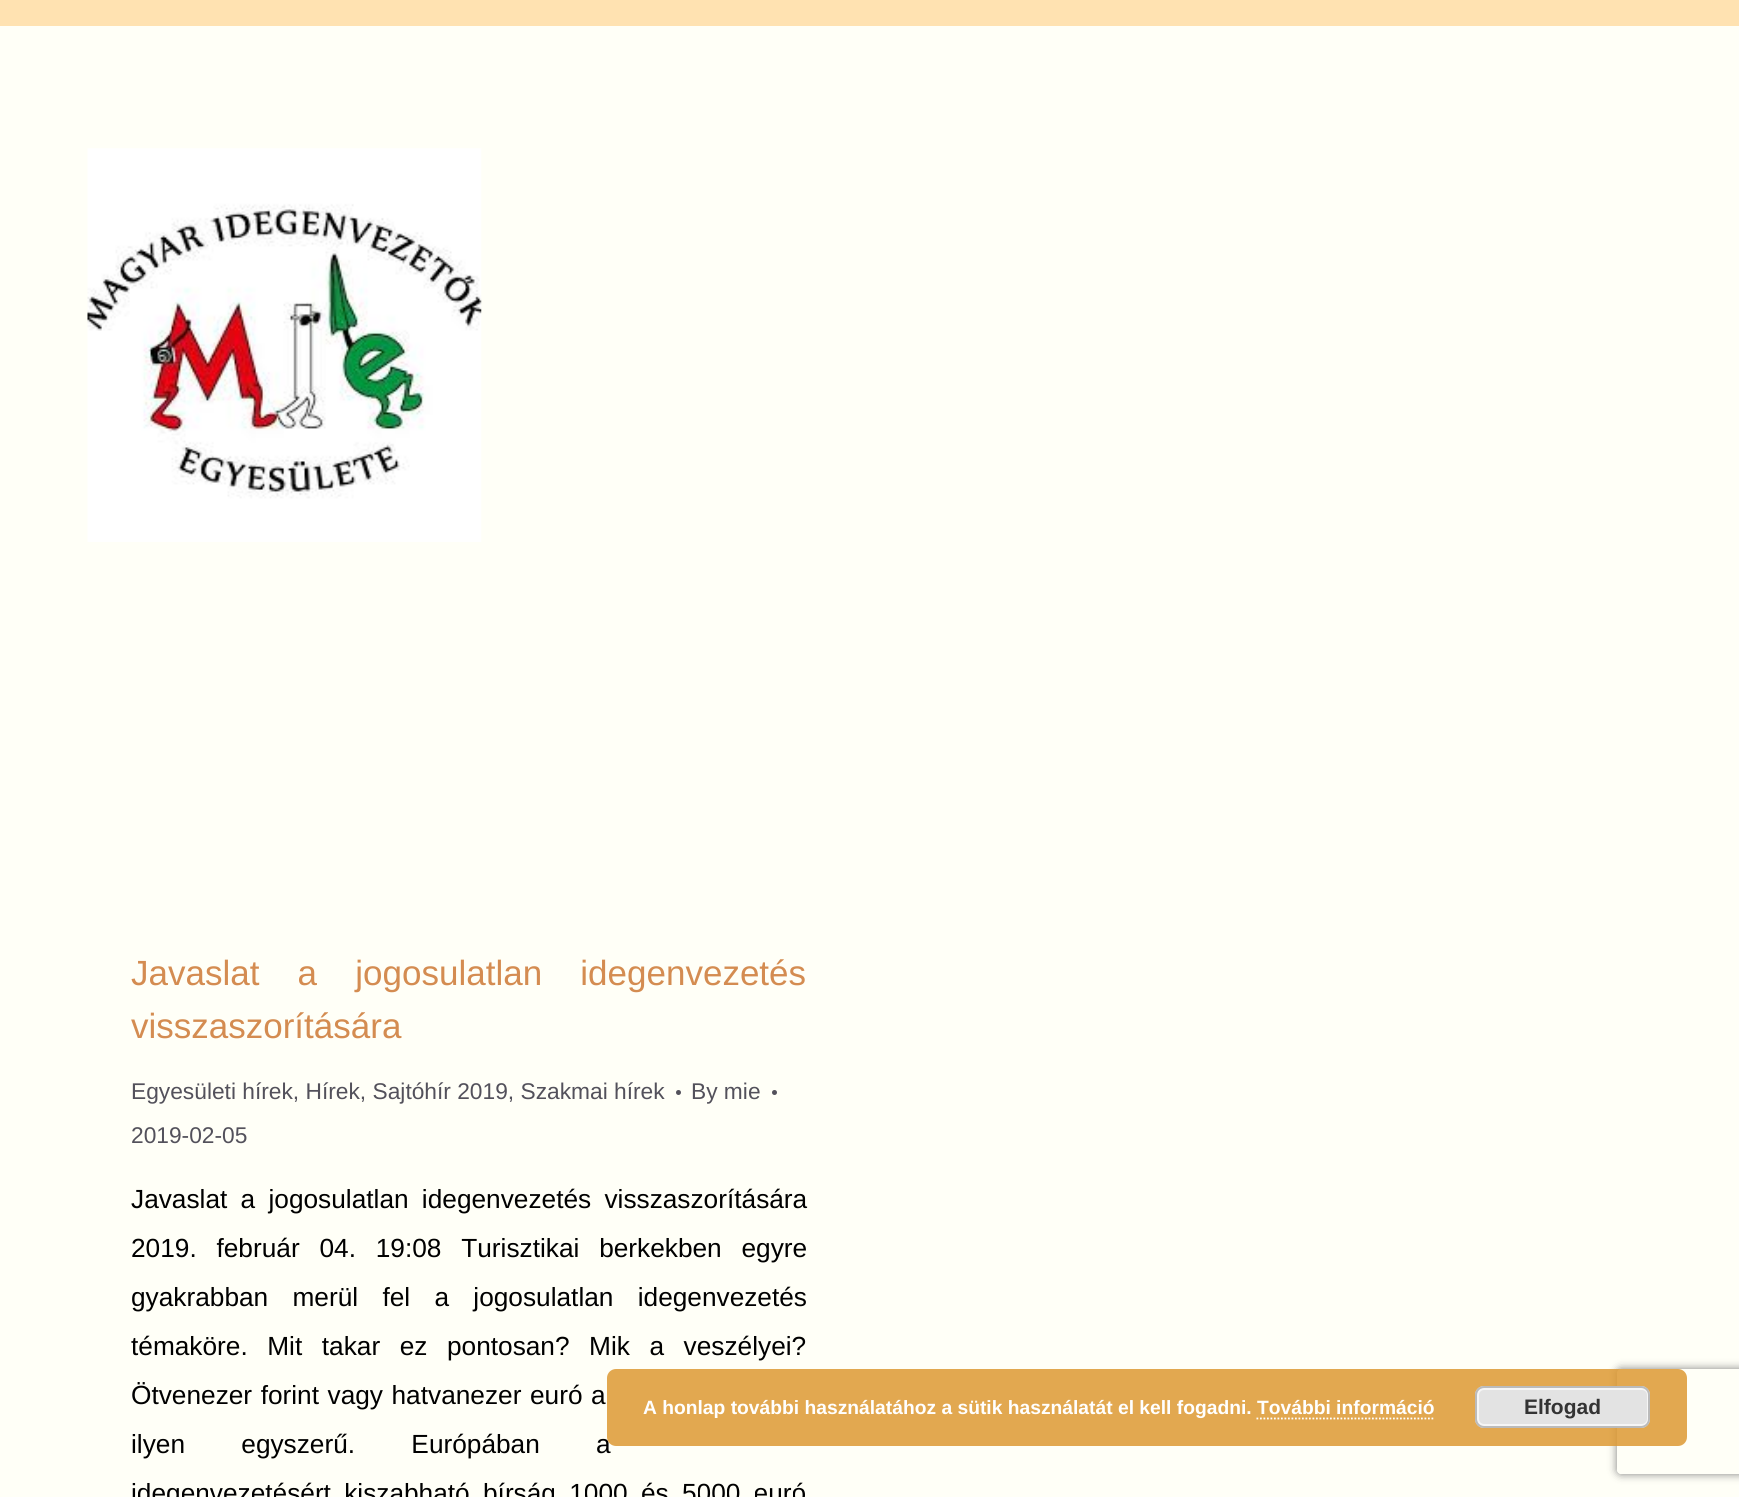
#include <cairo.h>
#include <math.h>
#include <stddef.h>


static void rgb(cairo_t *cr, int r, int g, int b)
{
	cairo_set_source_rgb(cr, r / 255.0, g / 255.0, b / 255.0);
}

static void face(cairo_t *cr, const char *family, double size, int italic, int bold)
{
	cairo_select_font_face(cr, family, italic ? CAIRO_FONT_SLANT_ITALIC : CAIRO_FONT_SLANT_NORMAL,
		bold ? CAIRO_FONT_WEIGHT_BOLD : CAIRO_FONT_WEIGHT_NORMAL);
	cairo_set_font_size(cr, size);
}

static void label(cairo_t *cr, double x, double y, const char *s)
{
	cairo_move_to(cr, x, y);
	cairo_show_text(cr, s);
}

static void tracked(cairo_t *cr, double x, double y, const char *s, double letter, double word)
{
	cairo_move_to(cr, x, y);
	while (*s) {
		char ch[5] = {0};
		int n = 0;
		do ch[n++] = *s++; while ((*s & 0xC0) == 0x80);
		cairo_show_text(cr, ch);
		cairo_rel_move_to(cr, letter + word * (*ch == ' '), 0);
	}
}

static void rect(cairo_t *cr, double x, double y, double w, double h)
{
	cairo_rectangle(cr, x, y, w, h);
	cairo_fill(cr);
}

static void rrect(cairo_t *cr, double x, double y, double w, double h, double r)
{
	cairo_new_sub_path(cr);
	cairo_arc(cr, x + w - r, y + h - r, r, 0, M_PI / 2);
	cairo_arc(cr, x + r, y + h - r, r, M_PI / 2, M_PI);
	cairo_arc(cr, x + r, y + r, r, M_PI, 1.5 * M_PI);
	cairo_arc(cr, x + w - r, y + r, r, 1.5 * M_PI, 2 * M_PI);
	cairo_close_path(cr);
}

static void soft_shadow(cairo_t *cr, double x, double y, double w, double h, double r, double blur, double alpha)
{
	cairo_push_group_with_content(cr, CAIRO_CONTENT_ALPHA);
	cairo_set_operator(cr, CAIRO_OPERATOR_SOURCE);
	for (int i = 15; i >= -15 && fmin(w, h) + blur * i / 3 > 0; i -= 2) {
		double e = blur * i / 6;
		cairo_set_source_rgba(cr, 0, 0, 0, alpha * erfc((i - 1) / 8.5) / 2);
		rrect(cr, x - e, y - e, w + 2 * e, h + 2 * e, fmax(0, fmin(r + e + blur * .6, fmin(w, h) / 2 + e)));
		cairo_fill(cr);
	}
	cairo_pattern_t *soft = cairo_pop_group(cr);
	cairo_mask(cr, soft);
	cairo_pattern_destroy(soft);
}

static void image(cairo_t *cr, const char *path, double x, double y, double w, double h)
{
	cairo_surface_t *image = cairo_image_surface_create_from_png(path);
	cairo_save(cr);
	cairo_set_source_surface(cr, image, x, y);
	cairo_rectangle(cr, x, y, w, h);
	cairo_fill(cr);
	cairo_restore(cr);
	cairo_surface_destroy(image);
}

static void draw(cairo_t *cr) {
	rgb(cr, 255, 255, 247);
	cairo_paint(cr);
	rgb(cr, 255, 226, 177);
	rect(cr, 0, 0, 1739, 26);
	image(cr, "image0.png", 87, 148, 395, 394);
	face(cr, "Liberation Sans", 35, 0, 0);
	rgb(cr, 212, 140, 81);
	tracked(cr, 131, 985, "Javaslat a jogosulatlan idegenvezetés", 0, 28.5);
	label(cr, 131, 1038, "visszaszorítására");
	face(cr, "Liberation Sans", 22.75, 0, 0);
	rgb(cr, 83, 81, 91);
	label(cr, 131, 1099, "Egyesületi hírek, Hírek, Sajtóhír 2019, Szakmai hírek");
	cairo_new_path(cr);
	cairo_arc(cr, 678.5, 1092.5, 2.5, 0, 2 * M_PI);
	cairo_fill(cr);
	label(cr, 691, 1099, "By mie");
	cairo_new_path(cr);
	cairo_arc(cr, 774.5, 1092.5, 2.5, 0, 2 * M_PI);
	cairo_fill(cr);
	label(cr, 131, 1143, "2019-02-05");
	face(cr, "Liberation Sans", 26.25, 0, 0);
	rgb(cr, 0, 0, 0);
	tracked(cr, 131, 1208, "Javaslat a jogosulatlan idegenvezetés visszaszorítására", 0, 6);
	tracked(cr, 131, 1257, "2019. február 04. 19:08 Turisztikai berkekben egyre", 0, 12.5);
	tracked(cr, 131, 1306, "gyakrabban merül fel a jogosulatlan idegenvezetés", 0, 17);
	tracked(cr, 131, 1355, "témaköre. Mit takar ez pontosan? Mik a veszélyei?", 0, 12.25);
	tracked(cr, 131, 1404, "Ötvenezer forint vagy hatvanezer euró a", 0, 1.25);
	tracked(cr, 131, 1453, "ilyen egyszerű. Európában a", 0, 49);
	tracked(cr, 131, 1502, "idegenvezetésért kiszabható bírság 1000 és 5000 euró", 0, 6);
	cairo_save(cr);
	cairo_set_fill_rule(cr, CAIRO_FILL_RULE_EVEN_ODD);
	cairo_new_path(cr);
	cairo_move_to(cr, 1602, 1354);
	cairo_line_to(cr, 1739, 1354);
	cairo_line_to(cr, 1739, 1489);
	cairo_line_to(cr, 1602, 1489);
	cairo_close_path(cr);
	cairo_move_to(cr, 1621, 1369);
	cairo_line_to(cr, 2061, 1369);
	cairo_curve_to(cr, 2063, 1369, 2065, 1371, 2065, 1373);
	cairo_line_to(cr, 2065, 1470);
	cairo_curve_to(cr, 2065, 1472, 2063, 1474, 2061, 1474);
	cairo_line_to(cr, 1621, 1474);
	cairo_curve_to(cr, 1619, 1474, 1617, 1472, 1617, 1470);
	cairo_line_to(cr, 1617, 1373);
	cairo_curve_to(cr, 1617, 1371, 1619, 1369, 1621, 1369);
	cairo_close_path(cr);
	cairo_clip(cr);
	rgb(cr, 128, 128, 128);
	soft_shadow(cr, 1617, 1369, 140, 105, 4, 4.5, 1);
	cairo_restore(cr);
	cairo_set_source_rgba(cr, 0.867, 0.6, 0.2, 0.85);
	rrect(cr, 607, 1369, 1080, 77, 9);
	cairo_fill(cr);
	face(cr, "Liberation Sans", 19.25, 0, 1);
	rgb(cr, 255, 255, 255);
	label(cr, 643, 1414, "A honlap további használatához a sütik használatát el kell fogadni. További információ");
	rgb(cr, 227, 227, 227);
	rrect(cr, 1475, 1386, 175, 42, 9);
	cairo_fill(cr);
	rrect(cr, 1478, 1389, 170, 36, 6);
	rgb(cr, 246, 246, 246);
	cairo_stroke(cr);
	rrect(cr, 1476, 1387, 173, 40, 8);
	rgb(cr, 187, 187, 187);
	cairo_stroke(cr);
	face(cr, "Liberation Sans", 21, 0, 1);
	rgb(cr, 51, 51, 51);
	label(cr, 1524, 1414, "Elfogad");
	cairo_new_path(cr);
	cairo_move_to(cr, 1256.5, 1418.5);
	cairo_line_to(cr, 1435, 1418.5);
	rgb(cr, 255, 255, 255);
	cairo_set_line_width(cr, 1.8);
	cairo_set_dash(cr, (double[]){1.75, 1.75}, 2, 0);
	cairo_stroke(cr);
}

int main(void) {
	cairo_surface_t *surface = cairo_image_surface_create(CAIRO_FORMAT_RGB24, 1739, 1497);
	cairo_t *cr = cairo_create(surface);
	cairo_font_options_t *options = cairo_font_options_create();
	cairo_font_options_set_hint_metrics(options, CAIRO_HINT_METRICS_OFF);
	cairo_font_options_set_hint_style(options, CAIRO_HINT_STYLE_NONE);
	cairo_set_font_options(cr, options);
	cairo_set_miter_limit(cr, 4);
	draw(cr);
	cairo_surface_write_to_png(surface, "render.png");
	cairo_font_options_destroy(options);
	cairo_destroy(cr);
	cairo_surface_destroy(surface);
	return 0;
}
